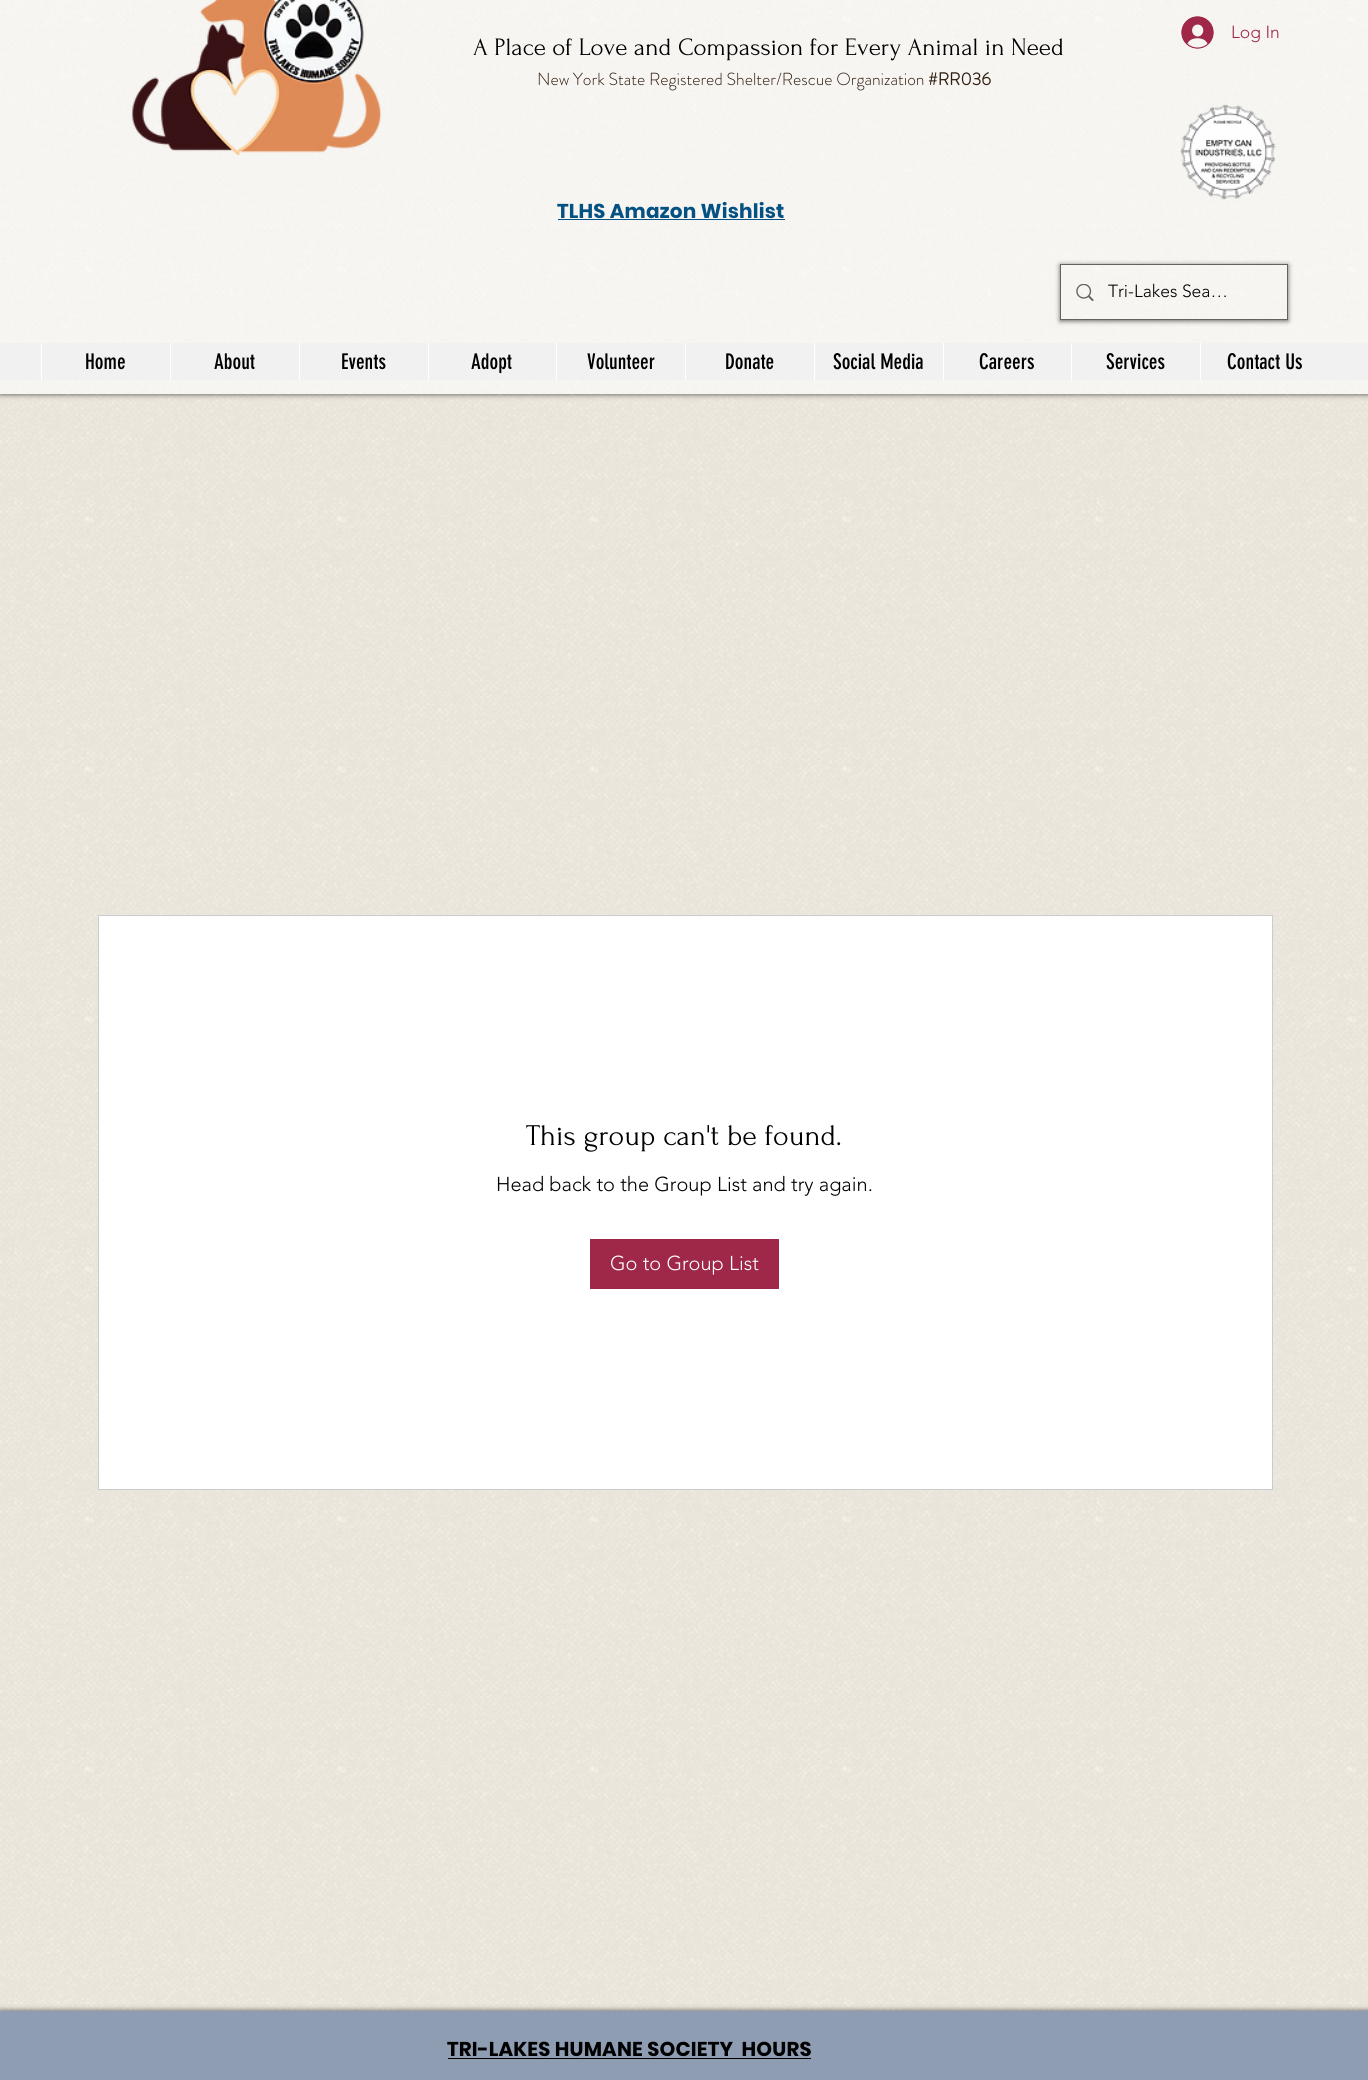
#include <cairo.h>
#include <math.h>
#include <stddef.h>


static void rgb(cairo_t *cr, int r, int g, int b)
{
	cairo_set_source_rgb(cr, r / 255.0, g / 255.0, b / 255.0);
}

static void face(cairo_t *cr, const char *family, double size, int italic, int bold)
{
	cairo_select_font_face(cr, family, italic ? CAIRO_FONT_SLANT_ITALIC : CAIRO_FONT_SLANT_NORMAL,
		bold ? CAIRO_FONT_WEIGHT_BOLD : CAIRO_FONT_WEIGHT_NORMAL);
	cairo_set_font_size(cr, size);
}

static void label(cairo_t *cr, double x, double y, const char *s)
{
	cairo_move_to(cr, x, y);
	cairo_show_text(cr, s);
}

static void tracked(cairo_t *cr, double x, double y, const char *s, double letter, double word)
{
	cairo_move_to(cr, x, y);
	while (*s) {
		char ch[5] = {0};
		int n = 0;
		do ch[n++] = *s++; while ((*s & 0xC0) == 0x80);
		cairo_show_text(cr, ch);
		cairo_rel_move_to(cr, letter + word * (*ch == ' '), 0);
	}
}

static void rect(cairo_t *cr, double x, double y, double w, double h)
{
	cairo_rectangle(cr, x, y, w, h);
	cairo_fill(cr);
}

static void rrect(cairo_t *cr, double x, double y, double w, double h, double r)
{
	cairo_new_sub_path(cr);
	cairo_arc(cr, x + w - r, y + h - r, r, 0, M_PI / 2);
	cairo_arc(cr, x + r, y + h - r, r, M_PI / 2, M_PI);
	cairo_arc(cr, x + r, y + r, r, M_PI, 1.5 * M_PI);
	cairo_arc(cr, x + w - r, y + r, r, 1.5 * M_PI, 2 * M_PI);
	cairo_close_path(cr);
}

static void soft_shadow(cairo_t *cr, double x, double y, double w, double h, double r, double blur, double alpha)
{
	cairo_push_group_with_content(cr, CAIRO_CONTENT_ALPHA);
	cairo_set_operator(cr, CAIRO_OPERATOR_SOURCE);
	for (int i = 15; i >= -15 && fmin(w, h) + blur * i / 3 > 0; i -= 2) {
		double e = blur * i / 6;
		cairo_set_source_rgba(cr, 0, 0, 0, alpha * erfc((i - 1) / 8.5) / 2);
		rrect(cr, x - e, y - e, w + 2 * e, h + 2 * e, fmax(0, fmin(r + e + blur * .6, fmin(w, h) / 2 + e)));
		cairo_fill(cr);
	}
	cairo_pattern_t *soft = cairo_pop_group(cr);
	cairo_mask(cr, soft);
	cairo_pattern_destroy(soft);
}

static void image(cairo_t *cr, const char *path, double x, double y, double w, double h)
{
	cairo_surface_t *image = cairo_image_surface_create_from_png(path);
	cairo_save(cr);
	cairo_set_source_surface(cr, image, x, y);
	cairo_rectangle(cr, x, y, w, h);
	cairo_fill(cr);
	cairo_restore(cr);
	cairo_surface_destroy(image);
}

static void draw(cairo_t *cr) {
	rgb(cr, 255, 255, 255);
	cairo_paint(cr);
	image(cr, "image0.png", 0, 0, 1368, 2011);
	cairo_save(cr);
	cairo_set_fill_rule(cr, CAIRO_FILL_RULE_EVEN_ODD);
	cairo_new_path(cr);
	cairo_move_to(cr, 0, 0);
	cairo_line_to(cr, 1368, 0);
	cairo_line_to(cr, 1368, 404);
	cairo_line_to(cr, 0, 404);
	cairo_close_path(cr);
	cairo_move_to(cr, 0, -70);
	cairo_line_to(cr, 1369, -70);
	cairo_line_to(cr, 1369, 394);
	cairo_line_to(cr, 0, 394);
	cairo_close_path(cr);
	cairo_clip(cr);
	rgb(cr, 0, 0, 0);
	soft_shadow(cr, 0, -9, 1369, 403, 0, 3, 0.7);
	cairo_restore(cr);
	cairo_set_source_rgba(cr, 1, 1, 1, 0.6);
	rect(cr, 0, 0, 1368, 394);
	image(cr, "image1.png", 131, 0, 251, 155);
	image(cr, "image2.png", 1181, 16, 33, 33);
	face(cr, "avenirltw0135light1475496 Light", 17.5, 0, 0);
	rgb(cr, 159, 39, 71);
	label(cr, 1231, 38, "Log In");
	face(cr, "Forum", 25, 0, 0);
	rgb(cr, 0, 0, 0);
	label(cr, 473, 55, "A Place of Love and Compassion for Every Animal in Need");
	face(cr, "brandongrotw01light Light", 17.5, 0, 0);
	rgb(cr, 48, 29, 16);
	label(cr, 537, 85, "New York State Registered Shelter/Rescue Organization");
	face(cr, "brandongrotw01light", 17.5, 0, 1);
	label(cr, 928, 85, "#RR036");
	image(cr, "image3.png", 1180, 104, 96, 96);
	face(cr, "Poppins", 20, 0, 1);
	rgb(cr, 4, 81, 132);
	tracked(cr, 557, 218, "TLHS Amazon Wishlist", 0.2, 0);
	rect(cr, 558, 219, 227, 1);
	cairo_save(cr);
	cairo_set_fill_rule(cr, CAIRO_FILL_RULE_EVEN_ODD);
	cairo_new_path(cr);
	cairo_move_to(cr, 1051, 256);
	cairo_line_to(cr, 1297, 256);
	cairo_line_to(cr, 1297, 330);
	cairo_line_to(cr, 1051, 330);
	cairo_close_path(cr);
	cairo_move_to(cr, 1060, 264);
	cairo_line_to(cr, 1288, 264);
	cairo_line_to(cr, 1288, 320);
	cairo_line_to(cr, 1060, 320);
	cairo_close_path(cr);
	cairo_clip(cr);
	rgb(cr, 0, 0, 0);
	soft_shadow(cr, 1060, 265, 228, 56, 0, 2.5, 0.6);
	cairo_restore(cr);
	cairo_rectangle(cr, 1060.5, 264.5, 227, 55);
	cairo_set_source_rgba(cr, 0, 0, 0, 0.6);
	cairo_set_line_width(cr, 1);
	cairo_stroke(cr);
	image(cr, "image4.png", 1076, 284, 18, 17);
	face(cr, "avenirltw0135light1475496 Light", 17.5, 0, 0);
	rgb(cr, 0, 0, 0);
	label(cr, 1108, 297, "Tri-Lakes Sea…");
	rgb(cr, 241, 241, 241);
	rect(cr, 0, 343, 1368, 37);
	rgb(cr, 255, 255, 255);
	rect(cr, 41, 343, 1, 37);
	face(cr, "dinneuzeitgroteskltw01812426", 21.25, 0, 0);
	rgb(cr, 0, 0, 0);
	label(cr, 85, 369, "Home");
	rgb(cr, 255, 255, 255);
	rect(cr, 170, 343, 1, 37);
	rgb(cr, 0, 0, 0);
	label(cr, 214, 369, "About");
	rgb(cr, 255, 255, 255);
	rect(cr, 299, 343, 1, 37);
	rgb(cr, 0, 0, 0);
	label(cr, 341, 369, "Events");
	rgb(cr, 255, 255, 255);
	rect(cr, 428, 343, 1, 37);
	rgb(cr, 0, 0, 0);
	label(cr, 471, 369, "Adopt");
	rgb(cr, 255, 255, 255);
	rect(cr, 556, 343, 1, 37);
	rgb(cr, 0, 0, 0);
	label(cr, 587, 369, "Volunteer");
	rgb(cr, 255, 255, 255);
	rect(cr, 685, 343, 1, 37);
	rgb(cr, 0, 0, 0);
	label(cr, 725, 369, "Donate");
	rgb(cr, 255, 255, 255);
	rect(cr, 814, 343, 1, 37);
	rgb(cr, 0, 0, 0);
	label(cr, 833, 369, "Social Media");
	rgb(cr, 255, 255, 255);
	rect(cr, 943, 343, 1, 37);
	rgb(cr, 0, 0, 0);
	label(cr, 979, 369, "Careers");
	rgb(cr, 255, 255, 255);
	rect(cr, 1071, 343, 1, 37);
	rgb(cr, 0, 0, 0);
	label(cr, 1106, 369, "Services");
	rgb(cr, 255, 255, 255);
	rect(cr, 1200, 343, 1, 37);
	rgb(cr, 0, 0, 0);
	label(cr, 1227, 369, "Contact Us");
	rgb(cr, 255, 255, 255);
	cairo_rectangle(cr, 98.5, 915.5, 1174, 574);
	cairo_fill_preserve(cr);
	rgb(cr, 204, 204, 204);
	cairo_stroke(cr);
	face(cr, "Forum", 30, 0, 0);
	rgb(cr, 0, 0, 0);
	label(cr, 526, 1145, "This group can't be found.");
	face(cr, "avenirltw0135light1475496 Light", 20, 0, 0);
	label(cr, 496, 1191, "Head back to the Group List and try again.");
	rgb(cr, 159, 39, 71);
	rect(cr, 590, 1239, 189, 50);
	rgb(cr, 255, 255, 255);
	label(cr, 610, 1270, "Go to Group List");
	rgb(cr, 0, 0, 0);
	soft_shadow(cr, 0, 2011, 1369, 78, 0, 3, 0.7);
	rgb(cr, 143, 157, 179);
	rect(cr, 0, 2011, 1368, 69);
	face(cr, "Poppins", 20, 0, 1);
	rgb(cr, 0, 0, 0);
	tracked(cr, 447, 2056, "TRI-LAKES HUMANE SOCIETY  HOURS", 0.2, 0);
	rect(cr, 448, 2058, 363, 1);
}

int main(void) {
	cairo_surface_t *surface = cairo_image_surface_create(CAIRO_FORMAT_RGB24, 1368, 2080);
	cairo_t *cr = cairo_create(surface);
	cairo_font_options_t *options = cairo_font_options_create();
	cairo_font_options_set_hint_metrics(options, CAIRO_HINT_METRICS_OFF);
	cairo_font_options_set_hint_style(options, CAIRO_HINT_STYLE_NONE);
	cairo_set_font_options(cr, options);
	cairo_set_miter_limit(cr, 4);
	draw(cr);
	cairo_surface_write_to_png(surface, "render.png");
	cairo_font_options_destroy(options);
	cairo_destroy(cr);
	cairo_surface_destroy(surface);
	return 0;
}
